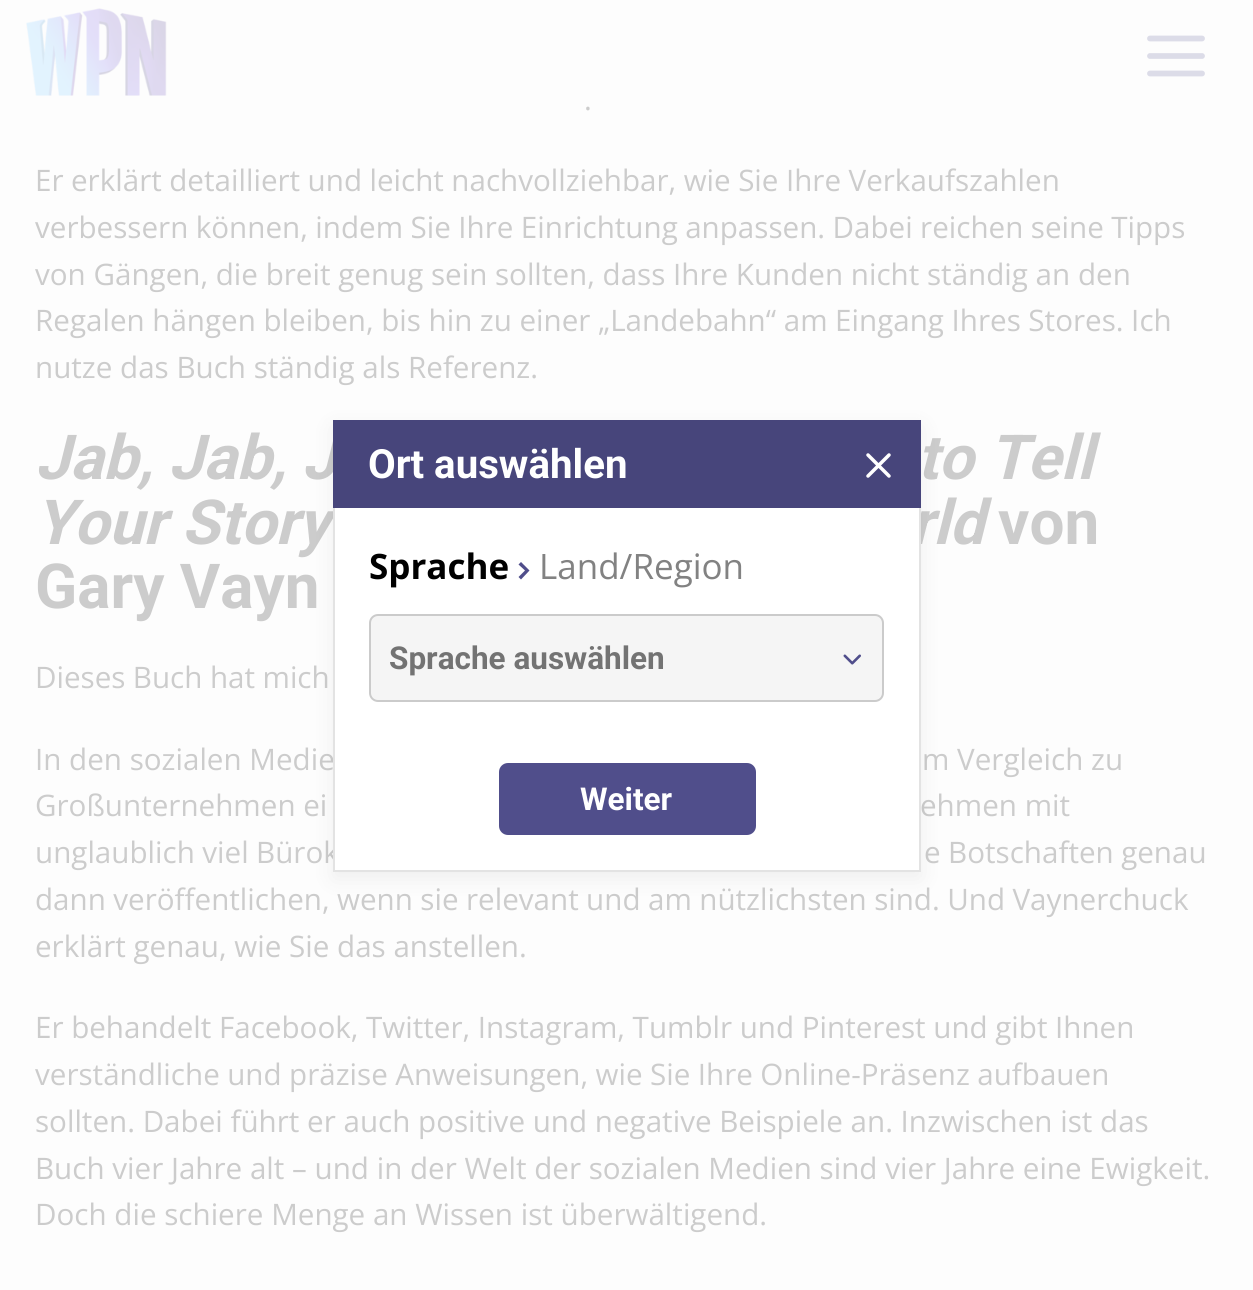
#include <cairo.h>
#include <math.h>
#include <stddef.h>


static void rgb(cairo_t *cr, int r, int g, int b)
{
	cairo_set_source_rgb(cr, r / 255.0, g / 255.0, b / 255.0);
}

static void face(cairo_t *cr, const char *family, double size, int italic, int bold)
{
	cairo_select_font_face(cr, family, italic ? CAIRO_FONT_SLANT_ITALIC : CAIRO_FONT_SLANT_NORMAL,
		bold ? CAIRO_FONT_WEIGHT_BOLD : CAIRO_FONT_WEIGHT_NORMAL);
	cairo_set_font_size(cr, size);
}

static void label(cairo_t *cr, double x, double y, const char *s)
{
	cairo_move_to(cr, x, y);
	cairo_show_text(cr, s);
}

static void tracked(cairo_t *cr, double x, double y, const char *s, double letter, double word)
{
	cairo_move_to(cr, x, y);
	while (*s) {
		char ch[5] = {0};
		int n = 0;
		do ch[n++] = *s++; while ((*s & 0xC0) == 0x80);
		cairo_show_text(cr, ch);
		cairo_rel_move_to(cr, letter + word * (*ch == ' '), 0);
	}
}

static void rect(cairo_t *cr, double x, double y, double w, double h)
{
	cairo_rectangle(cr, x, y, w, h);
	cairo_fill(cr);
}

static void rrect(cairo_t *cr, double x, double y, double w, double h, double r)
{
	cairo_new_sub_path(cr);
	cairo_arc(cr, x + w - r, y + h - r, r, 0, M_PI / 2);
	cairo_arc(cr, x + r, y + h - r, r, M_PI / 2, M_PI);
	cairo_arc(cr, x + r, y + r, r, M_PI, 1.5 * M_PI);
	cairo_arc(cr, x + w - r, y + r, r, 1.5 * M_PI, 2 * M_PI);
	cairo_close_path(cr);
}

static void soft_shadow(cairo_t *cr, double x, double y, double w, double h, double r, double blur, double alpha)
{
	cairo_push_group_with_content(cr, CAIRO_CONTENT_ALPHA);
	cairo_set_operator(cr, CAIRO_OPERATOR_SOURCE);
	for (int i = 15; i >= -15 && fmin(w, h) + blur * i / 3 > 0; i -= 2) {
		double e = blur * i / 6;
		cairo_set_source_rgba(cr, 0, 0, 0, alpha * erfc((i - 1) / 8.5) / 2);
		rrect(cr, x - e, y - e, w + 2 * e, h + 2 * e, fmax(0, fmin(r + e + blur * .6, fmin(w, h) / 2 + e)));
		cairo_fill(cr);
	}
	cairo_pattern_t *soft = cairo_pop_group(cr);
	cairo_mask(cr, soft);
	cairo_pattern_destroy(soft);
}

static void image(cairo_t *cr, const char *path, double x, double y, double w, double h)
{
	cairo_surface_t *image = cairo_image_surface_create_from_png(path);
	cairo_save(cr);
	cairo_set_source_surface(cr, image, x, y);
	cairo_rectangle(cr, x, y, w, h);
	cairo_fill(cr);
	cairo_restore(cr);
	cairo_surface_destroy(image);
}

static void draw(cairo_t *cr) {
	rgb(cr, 253, 253, 253);
	cairo_paint(cr);
	image(cr, "image0.png", 26, 8, 141, 88);
	cairo_new_path(cr);
	cairo_move_to(cr, 1150, 56);
	cairo_line_to(cr, 1202, 56);
	cairo_move_to(cr, 1150, 38.5);
	cairo_line_to(cr, 1202, 38.5);
	cairo_move_to(cr, 1150, 73.5);
	cairo_line_to(cr, 1202, 73.5);
	rgb(cr, 220, 220, 232);
	cairo_set_line_width(cr, 5.8);
	cairo_set_line_cap(cr, CAIRO_LINE_CAP_ROUND);
	cairo_set_line_join(cr, CAIRO_LINE_JOIN_ROUND);
	cairo_stroke(cr);
	face(cr, "Open Sans", 29.6, 0, 0);
	rgb(cr, 204, 204, 204);
	label(cr, 584, 110, ".");
	tracked(cr, 35, 191, "Er erklärt detailliert und leicht nachvollziehbar, wie Sie Ihre Verkaufszahlen", 0, -0.25);
	tracked(cr, 35, 238, "verbessern können, indem Sie Ihre Einrichtung anpassen. Dabei reichen seine Tipps", 0, -0.25);
	label(cr, 35, 285, "von Gängen, die breit genug sein sollten, dass Ihre Kunden nicht ständig an den");
	tracked(cr, 35, 331, "Regalen hängen bleiben, bis hin zu einer „Landebahn“ am Eingang Ihres Stores. Ich", 0, -0.1);
	label(cr, 35, 378, "nutze das Buch ständig als Referenz.");
	face(cr, "Roboto", 62, 1, 1);
	label(cr, 35, 479, "Jab, Jab, J");
	label(cr, 917, 479, "to Tell");
	label(cr, 35, 544, "Your Story");
	label(cr, 910, 544, "rld");
	face(cr, "Roboto", 62, 0, 1);
	label(cr, 998, 544, "von");
	label(cr, 35, 608, "Gary Vayn");
	face(cr, "Open Sans", 29.6, 0, 0);
	tracked(cr, 35, 688, "Dieses Buch hat mich", 0, -0.25);
	label(cr, 35, 770, "In den sozialen Medie");
	label(cr, 922, 770, "m Vergleich zu");
	label(cr, 35, 816, "Großunternehmen ei");
	label(cr, 920, 816, "ehmen mit");
	tracked(cr, 35, 863, "unglaublich viel Bürok", 0, -0.25);
	tracked(cr, 924, 863, "e Botschaften genau", 0, -0.25);
	tracked(cr, 35, 910, "dann veröffentlichen, wenn sie relevant und am nützlichsten sind. Und Vaynerchuck", 0, -0.25);
	label(cr, 35, 957, "erklärt genau, wie Sie das anstellen.");
	tracked(cr, 35, 1038, "Er behandelt Facebook, Twitter, Instagram, Tumblr und Pinterest und gibt Ihnen", 0, -0.1);
	tracked(cr, 35, 1085, "verständliche und präzise Anweisungen, wie Sie Ihre Online-Präsenz aufbauen", 0, -0.25);
	label(cr, 35, 1132, "sollten. Dabei führt er auch positive und negative Beispiele an. Inzwischen ist das");
	label(cr, 35, 1179, "Buch vier Jahre alt – und in der Welt der sozialen Medien sind vier Jahre eine Ewigkeit.");
	label(cr, 35, 1225, "Doch die schiere Menge an Wissen ist überwältigend.");
	rgb(cr, 0, 0, 0);
	soft_shadow(cr, 333, 427, 588, 452, 0, 11.5, 0.06);
	rgb(cr, 255, 255, 255);
	rect(cr, 335, 508, 584, 362);
	rgb(cr, 71, 69, 123);
	rect(cr, 333, 420, 588, 88);
	face(cr, "Roboto", 40.25, 0, 1);
	rgb(cr, 255, 255, 255);
	label(cr, 368, 478, "Ort auswählen");
	cairo_new_path(cr);
	cairo_move_to(cr, 889, 455);
	cairo_line_to(cr, 868, 476);
	cairo_move_to(cr, 868, 455);
	cairo_line_to(cr, 889, 476);
	cairo_set_line_width(cr, 3.5);
	cairo_stroke(cr);
	rgb(cr, 227, 227, 227);
	rect(cr, 919, 508, 2, 364);
	rect(cr, 333, 870, 588, 2);
	rect(cr, 333, 508, 2, 364);
	face(cr, "Open Sans", 35, 0, 1);
	rgb(cr, 0, 0, 0);
	label(cr, 369, 579, "Sprache");
	rgb(cr, 80, 78, 139);
	cairo_new_path(cr);
	cairo_move_to(cr, 521, 579.5);
	cairo_line_to(cr, 529.5, 570.5);
	cairo_line_to(cr, 521, 562);
	cairo_line_to(cr, 518.5, 564.5);
	cairo_line_to(cr, 525, 570.5);
	cairo_line_to(cr, 518.5, 577);
	cairo_close_path(cr);
	cairo_fill(cr);
	face(cr, "Open Sans", 35, 0, 0);
	rgb(cr, 130, 130, 130);
	label(cr, 539, 579, "Land/Region");
	rgb(cr, 245, 245, 245);
	rrect(cr, 370, 615, 513, 86, 8);
	cairo_fill_preserve(cr);
	rgb(cr, 203, 203, 203);
	cairo_set_line_width(cr, 2);
	cairo_set_line_cap(cr, CAIRO_LINE_CAP_BUTT);
	cairo_set_line_join(cr, CAIRO_LINE_JOIN_MITER);
	cairo_stroke(cr);
	face(cr, "Roboto", 31.5, 0, 1);
	rgb(cr, 115, 115, 115);
	label(cr, 389, 669, "Sprache auswählen");
	image(cr, "image1.png", 843, 654, 18, 11);
	rgb(cr, 80, 78, 139);
	rrect(cr, 499, 763, 257, 72, 9);
	cairo_fill(cr);
	rgb(cr, 255, 255, 255);
	label(cr, 580, 810, "Weiter");
}

int main(void) {
	cairo_surface_t *surface = cairo_image_surface_create(CAIRO_FORMAT_RGB24, 1253, 1290);
	cairo_t *cr = cairo_create(surface);
	cairo_font_options_t *options = cairo_font_options_create();
	cairo_font_options_set_hint_metrics(options, CAIRO_HINT_METRICS_OFF);
	cairo_font_options_set_hint_style(options, CAIRO_HINT_STYLE_NONE);
	cairo_set_font_options(cr, options);
	cairo_set_miter_limit(cr, 4);
	draw(cr);
	cairo_surface_write_to_png(surface, "render.png");
	cairo_font_options_destroy(options);
	cairo_destroy(cr);
	cairo_surface_destroy(surface);
	return 0;
}
